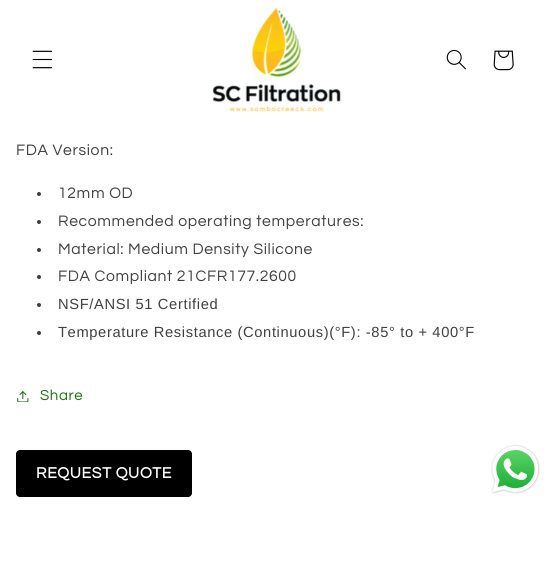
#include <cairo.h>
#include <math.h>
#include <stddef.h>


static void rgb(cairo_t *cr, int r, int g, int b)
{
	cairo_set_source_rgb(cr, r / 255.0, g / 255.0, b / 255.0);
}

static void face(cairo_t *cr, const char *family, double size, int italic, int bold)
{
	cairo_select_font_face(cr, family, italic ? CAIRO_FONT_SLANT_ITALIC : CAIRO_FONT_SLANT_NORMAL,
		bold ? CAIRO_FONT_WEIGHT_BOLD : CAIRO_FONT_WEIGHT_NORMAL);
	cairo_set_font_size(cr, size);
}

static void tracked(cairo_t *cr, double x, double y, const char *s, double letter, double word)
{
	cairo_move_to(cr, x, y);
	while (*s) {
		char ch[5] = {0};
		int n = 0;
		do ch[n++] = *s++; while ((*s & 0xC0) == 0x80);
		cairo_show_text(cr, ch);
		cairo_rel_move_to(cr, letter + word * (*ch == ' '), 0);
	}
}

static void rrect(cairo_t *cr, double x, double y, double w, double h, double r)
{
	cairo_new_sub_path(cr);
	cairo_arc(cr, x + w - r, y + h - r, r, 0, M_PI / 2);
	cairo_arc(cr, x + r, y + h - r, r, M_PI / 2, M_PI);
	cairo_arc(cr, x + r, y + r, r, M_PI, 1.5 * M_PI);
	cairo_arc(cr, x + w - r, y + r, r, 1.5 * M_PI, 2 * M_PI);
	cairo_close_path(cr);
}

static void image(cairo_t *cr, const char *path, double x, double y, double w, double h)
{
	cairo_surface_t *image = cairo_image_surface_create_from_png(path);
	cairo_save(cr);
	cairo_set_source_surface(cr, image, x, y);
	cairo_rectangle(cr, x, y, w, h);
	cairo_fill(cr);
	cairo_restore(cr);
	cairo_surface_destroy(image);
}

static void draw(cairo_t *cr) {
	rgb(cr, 255, 255, 255);
	cairo_paint(cr);
	image(cr, "image0.png", 32, 50, 20, 19);
	image(cr, "image1.png", 212, 7, 129, 105);
	image(cr, "image2.png", 446, 49, 20, 21);
	image(cr, "image3.png", 493, 50, 21, 21);
	face(cr, "Questrial", 15.75, 0, 0);
	rgb(cr, 64, 64, 64);
	tracked(cr, 16, 155, "FDA Version:", 0.63, 0);
	cairo_new_path(cr);
	cairo_arc(cr, 39, 194, 2, 0, 2 * M_PI);
	cairo_fill(cr);
	tracked(cr, 58, 198, "12mm OD", 0.63, 0);
	cairo_new_path(cr);
	cairo_arc(cr, 39, 222, 2, 0, 2 * M_PI);
	cairo_fill(cr);
	tracked(cr, 58, 226, "Recommended operating temperatures:", 0.63, 0);
	cairo_new_path(cr);
	cairo_arc(cr, 39, 250, 2, 0, 2 * M_PI);
	cairo_fill(cr);
	tracked(cr, 58, 254, "Material: Medium Density Silicone", 0.63, 0);
	cairo_new_path(cr);
	cairo_arc(cr, 39, 277, 2, 0, 2 * M_PI);
	cairo_fill(cr);
	tracked(cr, 58, 281, "FDA Compliant 21CFR177.2600", 0.63, 0);
	cairo_new_path(cr);
	cairo_arc(cr, 39, 305, 2, 0, 2 * M_PI);
	cairo_fill(cr);
	face(cr, "Liberation Sans", 14.7, 0, 0);
	tracked(cr, 58, 309, "NSF/ANSI 51 Certified", 0.63, 0);
	cairo_new_path(cr);
	cairo_arc(cr, 39, 333, 2, 0, 2 * M_PI);
	cairo_fill(cr);
	tracked(cr, 58, 337, "Temperature Resistance (Continuous)(°F): -85° to + 400°F", 0.63, 0);
	image(cr, "image4.png", 17, 391, 12, 11);
	face(cr, "Questrial", 15, 0, 0);
	rgb(cr, 27, 112, 16);
	tracked(cr, 40, 400, "Share", 0.63, 0);
	rgb(cr, 0, 0, 0);
	rrect(cr, 16, 450, 176, 47, 4);
	cairo_fill(cr);
	face(cr, "Questrial", 15.75, 0, 1);
	rgb(cr, 255, 255, 255);
	tracked(cr, 36, 478, "REQUEST QUOTE", 0.63, 0);
	image(cr, "image5.png", 491, 444, 49, 50);
}

int main(void) {
	cairo_surface_t *surface = cairo_image_surface_create(CAIRO_FORMAT_RGB24, 553, 587);
	cairo_t *cr = cairo_create(surface);
	cairo_font_options_t *options = cairo_font_options_create();
	cairo_font_options_set_hint_metrics(options, CAIRO_HINT_METRICS_OFF);
	cairo_font_options_set_hint_style(options, CAIRO_HINT_STYLE_NONE);
	cairo_set_font_options(cr, options);
	cairo_set_miter_limit(cr, 4);
	draw(cr);
	cairo_surface_write_to_png(surface, "render.png");
	cairo_font_options_destroy(options);
	cairo_destroy(cr);
	cairo_surface_destroy(surface);
	return 0;
}
